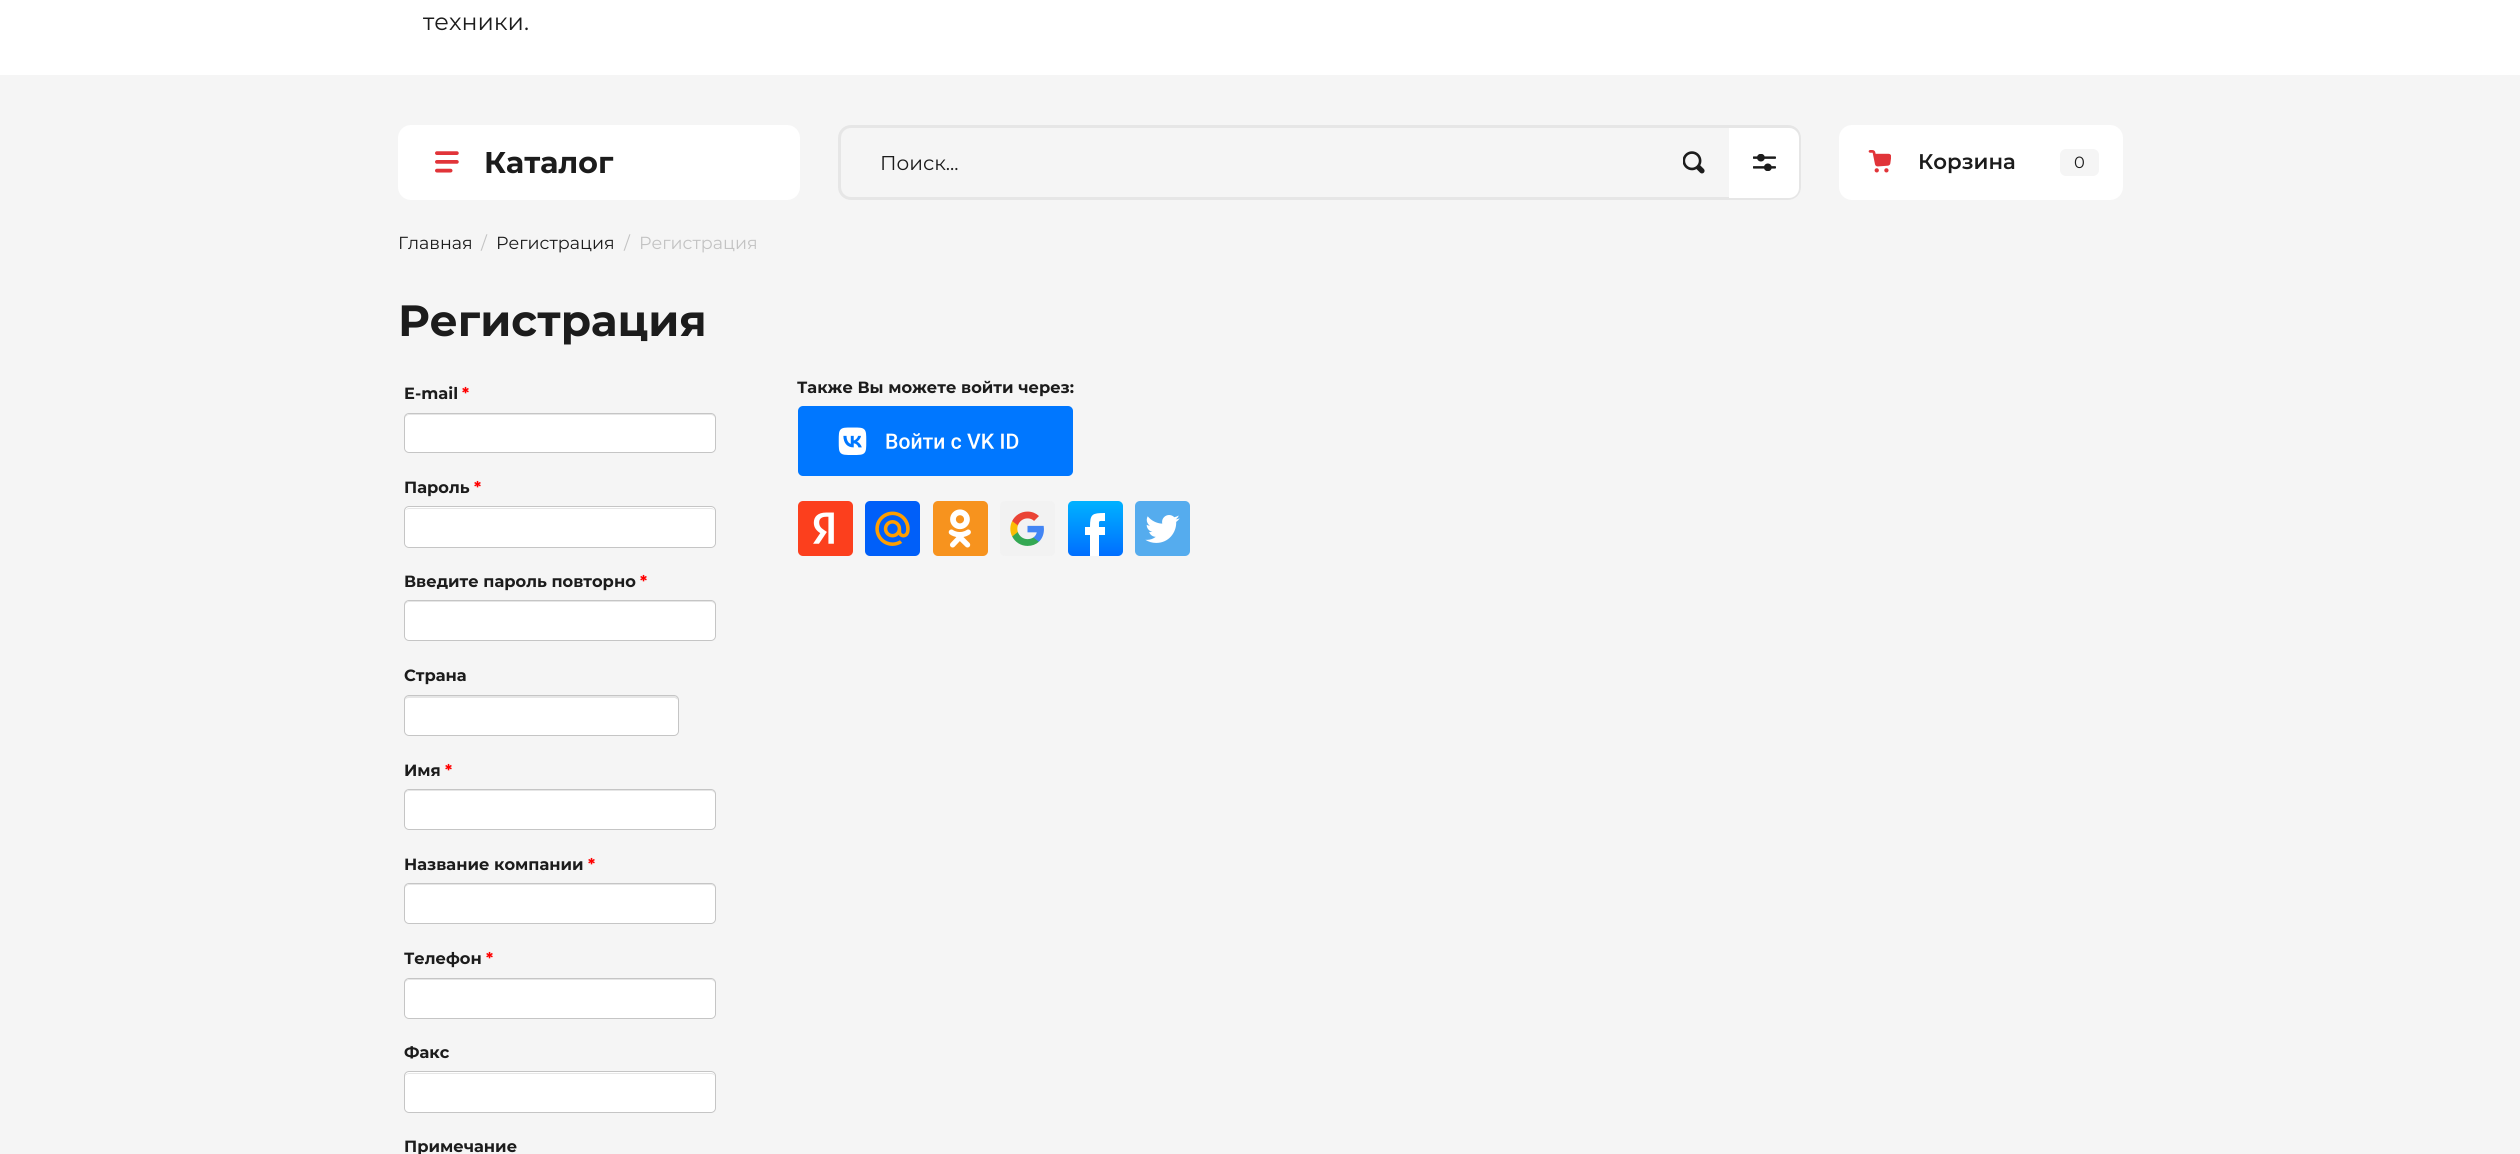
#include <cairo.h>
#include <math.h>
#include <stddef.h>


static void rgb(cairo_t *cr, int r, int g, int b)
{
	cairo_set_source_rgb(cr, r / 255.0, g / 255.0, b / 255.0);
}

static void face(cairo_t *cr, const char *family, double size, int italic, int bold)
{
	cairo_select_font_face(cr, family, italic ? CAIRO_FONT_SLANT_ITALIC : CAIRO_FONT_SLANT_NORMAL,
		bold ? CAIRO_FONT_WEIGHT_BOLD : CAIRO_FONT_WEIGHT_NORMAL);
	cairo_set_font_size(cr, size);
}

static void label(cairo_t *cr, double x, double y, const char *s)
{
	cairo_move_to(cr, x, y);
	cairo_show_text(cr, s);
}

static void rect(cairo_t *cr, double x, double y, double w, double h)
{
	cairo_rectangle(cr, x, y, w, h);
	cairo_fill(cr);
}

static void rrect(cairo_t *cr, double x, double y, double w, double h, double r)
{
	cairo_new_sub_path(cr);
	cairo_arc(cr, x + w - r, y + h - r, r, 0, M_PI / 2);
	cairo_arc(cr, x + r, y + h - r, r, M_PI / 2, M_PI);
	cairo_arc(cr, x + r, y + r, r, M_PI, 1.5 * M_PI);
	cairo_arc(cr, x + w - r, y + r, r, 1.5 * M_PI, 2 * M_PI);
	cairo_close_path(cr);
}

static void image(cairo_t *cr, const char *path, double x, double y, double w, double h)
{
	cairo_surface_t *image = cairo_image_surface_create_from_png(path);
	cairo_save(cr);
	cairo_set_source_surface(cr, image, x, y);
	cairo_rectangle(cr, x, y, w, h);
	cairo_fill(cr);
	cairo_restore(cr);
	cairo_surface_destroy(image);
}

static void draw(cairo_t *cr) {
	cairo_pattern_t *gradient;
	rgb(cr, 245, 245, 245);
	cairo_paint(cr);
	rgb(cr, 255, 255, 255);
	rect(cr, 0, 0, 2520, 75);
	face(cr, "Montserrat", 23.75, 0, 0);
	rgb(cr, 28, 28, 28);
	label(cr, 423, 30, "техники.");
	rgb(cr, 255, 255, 255);
	rrect(cr, 398, 125, 402, 75, 13);
	cairo_fill(cr);
	image(cr, "image0.png", 435, 151, 24, 22);
	face(cr, "Montserrat", 30, 0, 1);
	rgb(cr, 28, 28, 28);
	label(cr, 484, 173, "Каталог");
	rrect(cr, 839.5, 126.5, 960, 72, 11.5);
	rgb(cr, 230, 230, 230);
	cairo_set_line_width(cr, 3);
	cairo_stroke(cr);
	face(cr, "Montserrat", 20, 0, 0);
	rgb(cr, 28, 28, 28);
	label(cr, 880, 170, "Поиск...");
	image(cr, "image1.png", 1683, 151, 22, 23);
	rgb(cr, 255, 255, 255);
	cairo_new_path(cr);
	cairo_move_to(cr, 1729, 128);
	cairo_line_to(cr, 1789, 128);
	cairo_curve_to(cr, 1794.5, 128, 1799, 132.5, 1799, 138);
	cairo_line_to(cr, 1799, 188);
	cairo_curve_to(cr, 1799, 193.5, 1794.5, 198, 1789, 198);
	cairo_line_to(cr, 1729, 198);
	cairo_close_path(cr);
	cairo_fill(cr);
	image(cr, "image2.png", 1753, 154, 23, 17);
	rrect(cr, 1839, 125, 284, 75, 13);
	cairo_fill(cr);
	image(cr, "image3.png", 1868, 150, 23, 23);
	face(cr, "Montserrat SemiBold", 21.25, 0, 0);
	rgb(cr, 28, 28, 28);
	label(cr, 1918, 169, "Корзина");
	rgb(cr, 245, 245, 245);
	rrect(cr, 2060, 149, 39, 27, 6);
	cairo_fill(cr);
	face(cr, "Montserrat", 16.25, 0, 0);
	rgb(cr, 28, 28, 28);
	label(cr, 2074, 168, "0");
	face(cr, "Montserrat", 17.5, 0, 0);
	label(cr, 398, 249, "Главная");
	rgb(cr, 195, 195, 195);
	label(cr, 481, 249, "/");
	rgb(cr, 28, 28, 28);
	label(cr, 496, 249, "Регистрация");
	rgb(cr, 195, 195, 195);
	label(cr, 624, 249, "/  Регистрация");
	face(cr, "Montserrat", 43.75, 0, 1);
	rgb(cr, 28, 28, 28);
	label(cr, 398, 336, "Регистрация");
	face(cr, "Montserrat", 16.25, 0, 1);
	label(cr, 404, 399, "E-mail");
	rgb(cr, 255, 0, 0);
	label(cr, 462, 399, "*");
	rgb(cr, 255, 255, 255);
	rrect(cr, 404, 413, 312, 40, 5);
	cairo_fill(cr);
	rgb(cr, 230, 230, 230);
	cairo_new_path(cr);
	cairo_move_to(cr, 409, 415);
	cairo_line_to(cr, 711, 415);
	cairo_curve_to(cr, 713, 415, 715, 417, 715, 419);
	cairo_curve_to(cr, 715, 416, 714, 414, 711, 414);
	cairo_line_to(cr, 409, 414);
	cairo_line_to(cr, 406, 415);
	cairo_curve_to(cr, 405, 416, 405, 418, 405, 419);
	cairo_curve_to(cr, 405, 417, 407, 415, 409, 415);
	cairo_close_path(cr);
	cairo_fill(cr);
	rrect(cr, 404.5, 413.5, 311, 39, 4.5);
	rgb(cr, 197, 197, 197);
	cairo_set_line_width(cr, 1);
	cairo_stroke(cr);
	rgb(cr, 28, 28, 28);
	label(cr, 404, 493, "Пароль");
	rgb(cr, 255, 0, 0);
	label(cr, 474, 493, "*");
	rgb(cr, 255, 255, 255);
	rrect(cr, 404, 506, 312, 42, 5);
	cairo_fill(cr);
	rgb(cr, 230, 230, 230);
	cairo_new_path(cr);
	cairo_move_to(cr, 409, 509);
	cairo_line_to(cr, 711, 509);
	cairo_curve_to(cr, 713, 509, 715, 510, 715, 512);
	cairo_curve_to(cr, 715, 510, 713, 508, 711, 508);
	cairo_line_to(cr, 409, 508);
	cairo_curve_to(cr, 407, 508, 405, 510, 405, 512);
	cairo_curve_to(cr, 405, 510, 407, 509, 409, 509);
	cairo_close_path(cr);
	cairo_fill(cr);
	rrect(cr, 404.5, 506.5, 311, 41, 4.5);
	rgb(cr, 197, 197, 197);
	cairo_stroke(cr);
	rgb(cr, 28, 28, 28);
	label(cr, 404, 587, "Введите пароль повторно");
	rgb(cr, 255, 0, 0);
	label(cr, 640, 587, "*");
	rgb(cr, 255, 255, 255);
	rrect(cr, 404, 600, 312, 41, 5);
	cairo_fill(cr);
	rgb(cr, 230, 230, 230);
	cairo_new_path(cr);
	cairo_move_to(cr, 409, 602);
	cairo_line_to(cr, 711, 602);
	cairo_curve_to(cr, 713, 602, 715, 604, 715, 606);
	cairo_curve_to(cr, 715, 603, 714, 601, 711, 601);
	cairo_line_to(cr, 409, 601);
	cairo_line_to(cr, 406, 602);
	cairo_curve_to(cr, 405, 603, 405, 605, 405, 606);
	cairo_curve_to(cr, 405, 604, 407, 602, 409, 602);
	cairo_close_path(cr);
	cairo_fill(cr);
	rrect(cr, 404.5, 600.5, 311, 40, 4.5);
	rgb(cr, 197, 197, 197);
	cairo_stroke(cr);
	rgb(cr, 28, 28, 28);
	label(cr, 404, 681, "Страна");
	rgb(cr, 255, 255, 255);
	rrect(cr, 404, 695, 275, 41, 5);
	cairo_fill(cr);
	rgb(cr, 230, 230, 230);
	cairo_new_path(cr);
	cairo_move_to(cr, 409, 698);
	cairo_line_to(cr, 675, 698);
	cairo_line_to(cr, 678, 700);
	cairo_line_to(cr, 678, 701);
	cairo_curve_to(cr, 678, 698, 677, 696, 674, 696);
	cairo_line_to(cr, 409, 696);
	cairo_curve_to(cr, 406, 696, 405, 698, 405, 701);
	cairo_curve_to(cr, 405, 699, 407, 698, 409, 698);
	cairo_close_path(cr);
	cairo_fill(cr);
	rrect(cr, 404.5, 695.5, 274, 40, 4.5);
	rgb(cr, 197, 197, 197);
	cairo_stroke(cr);
	rgb(cr, 28, 28, 28);
	label(cr, 404, 776, "Имя");
	rgb(cr, 255, 0, 0);
	label(cr, 445, 776, "*");
	rgb(cr, 255, 255, 255);
	rrect(cr, 404, 789, 312, 41, 5);
	cairo_fill(cr);
	rgb(cr, 230, 230, 230);
	cairo_new_path(cr);
	cairo_move_to(cr, 409, 791);
	cairo_line_to(cr, 711, 791);
	cairo_curve_to(cr, 713, 791, 715, 793, 715, 795);
	cairo_curve_to(cr, 715, 792, 714, 790, 711, 790);
	cairo_line_to(cr, 409, 790);
	cairo_line_to(cr, 406, 791);
	cairo_curve_to(cr, 405, 792, 405, 794, 405, 795);
	cairo_curve_to(cr, 405, 793, 407, 791, 409, 791);
	cairo_close_path(cr);
	cairo_fill(cr);
	rrect(cr, 404.5, 789.5, 311, 40, 4.5);
	rgb(cr, 197, 197, 197);
	cairo_stroke(cr);
	rgb(cr, 28, 28, 28);
	label(cr, 404, 870, "Название компании");
	rgb(cr, 255, 0, 0);
	label(cr, 588, 870, "*");
	rgb(cr, 255, 255, 255);
	rrect(cr, 404, 883, 312, 41, 5);
	cairo_fill(cr);
	rgb(cr, 230, 230, 230);
	cairo_new_path(cr);
	cairo_move_to(cr, 409, 885);
	cairo_line_to(cr, 711, 885);
	cairo_curve_to(cr, 713, 885, 715, 887, 715, 889);
	cairo_curve_to(cr, 715, 886, 714, 884, 711, 884);
	cairo_line_to(cr, 409, 884);
	cairo_line_to(cr, 406, 885);
	cairo_curve_to(cr, 405, 886, 405, 888, 405, 889);
	cairo_curve_to(cr, 405, 887, 407, 885, 409, 885);
	cairo_close_path(cr);
	cairo_fill(cr);
	rrect(cr, 404.5, 883.5, 311, 40, 4.5);
	rgb(cr, 197, 197, 197);
	cairo_stroke(cr);
	rgb(cr, 28, 28, 28);
	label(cr, 404, 964, "Телефон");
	rgb(cr, 255, 0, 0);
	label(cr, 486, 964, "*");
	rgb(cr, 255, 255, 255);
	rrect(cr, 404, 978, 312, 41, 5);
	cairo_fill(cr);
	rgb(cr, 230, 230, 230);
	cairo_new_path(cr);
	cairo_move_to(cr, 409, 980);
	cairo_line_to(cr, 711, 980);
	cairo_curve_to(cr, 713, 980, 715, 982, 715, 984);
	cairo_curve_to(cr, 715, 981, 714, 979, 711, 979);
	cairo_line_to(cr, 409, 979);
	cairo_line_to(cr, 406, 980);
	cairo_curve_to(cr, 405, 981, 405, 983, 405, 984);
	cairo_curve_to(cr, 405, 982, 407, 980, 409, 980);
	cairo_close_path(cr);
	cairo_fill(cr);
	rrect(cr, 404.5, 978.5, 311, 40, 4.5);
	rgb(cr, 197, 197, 197);
	cairo_stroke(cr);
	rgb(cr, 28, 28, 28);
	label(cr, 404, 1058, "Факс");
	rgb(cr, 255, 255, 255);
	rrect(cr, 404, 1071, 312, 42, 5);
	cairo_fill(cr);
	rgb(cr, 230, 230, 230);
	cairo_new_path(cr);
	cairo_move_to(cr, 409, 1074);
	cairo_line_to(cr, 711, 1074);
	cairo_curve_to(cr, 713, 1074, 715, 1075, 715, 1078);
	cairo_curve_to(cr, 715, 1075, 714, 1073, 711, 1073);
	cairo_line_to(cr, 409, 1073);
	cairo_line_to(cr, 406, 1074);
	cairo_curve_to(cr, 405, 1075, 405, 1077, 405, 1078);
	cairo_curve_to(cr, 405, 1075, 407, 1074, 409, 1074);
	cairo_close_path(cr);
	cairo_fill(cr);
	rrect(cr, 404.5, 1071.5, 311, 41, 4.5);
	rgb(cr, 197, 197, 197);
	cairo_stroke(cr);
	rgb(cr, 28, 28, 28);
	label(cr, 404, 1152, "Примечание");
	label(cr, 797, 393, "Также Вы можете войти через:");
	rgb(cr, 0, 119, 255);
	rrect(cr, 798, 406, 275, 70, 5);
	cairo_fill(cr);
	image(cr, "image4.png", 838, 427, 181, 28);
	image(cr, "image5.png", 798, 501, 55, 55);
	image(cr, "image6.png", 865, 501, 55, 55);
	image(cr, "image7.png", 933, 501, 55, 55);
	rgb(cr, 242, 242, 242);
	rrect(cr, 1000, 501, 55, 55, 5);
	cairo_fill(cr);
	image(cr, "image8.png", 1010, 511, 34, 35);
	gradient = cairo_pattern_create_linear(1095, 501, 1095, 559);
	cairo_pattern_add_color_stop_rgba(gradient, 0, 0, 0.698, 1, 1);
	cairo_pattern_add_color_stop_rgba(gradient, 1, 0, 0.416, 1, 1);
	cairo_set_source(cr, gradient);
	cairo_pattern_destroy(gradient);
	rrect(cr, 1068, 501, 55, 55, 5);
	cairo_fill(cr);
	rgb(cr, 255, 255, 255);
	cairo_new_path(cr);
	cairo_move_to(cr, 1099, 556);
	cairo_line_to(cr, 1099, 535);
	cairo_line_to(cr, 1105, 535);
	cairo_line_to(cr, 1105, 527);
	cairo_line_to(cr, 1099, 527);
	cairo_curve_to(cr, 1099, 520, 1098, 521, 1105, 521);
	cairo_line_to(cr, 1105, 513);
	cairo_curve_to(cr, 1092, 513, 1090, 514, 1090, 527);
	cairo_line_to(cr, 1085, 527);
	cairo_line_to(cr, 1085, 535);
	cairo_line_to(cr, 1090, 535);
	cairo_line_to(cr, 1090, 556);
	cairo_close_path(cr);
	cairo_fill(cr);
	image(cr, "image9.png", 1135, 501, 55, 55);
}

int main(void) {
	cairo_surface_t *surface = cairo_image_surface_create(CAIRO_FORMAT_RGB24, 2520, 1154);
	cairo_t *cr = cairo_create(surface);
	cairo_font_options_t *options = cairo_font_options_create();
	cairo_font_options_set_hint_metrics(options, CAIRO_HINT_METRICS_OFF);
	cairo_font_options_set_hint_style(options, CAIRO_HINT_STYLE_NONE);
	cairo_set_font_options(cr, options);
	cairo_set_miter_limit(cr, 4);
	draw(cr);
	cairo_surface_write_to_png(surface, "render.png");
	cairo_font_options_destroy(options);
	cairo_destroy(cr);
	cairo_surface_destroy(surface);
	return 0;
}
